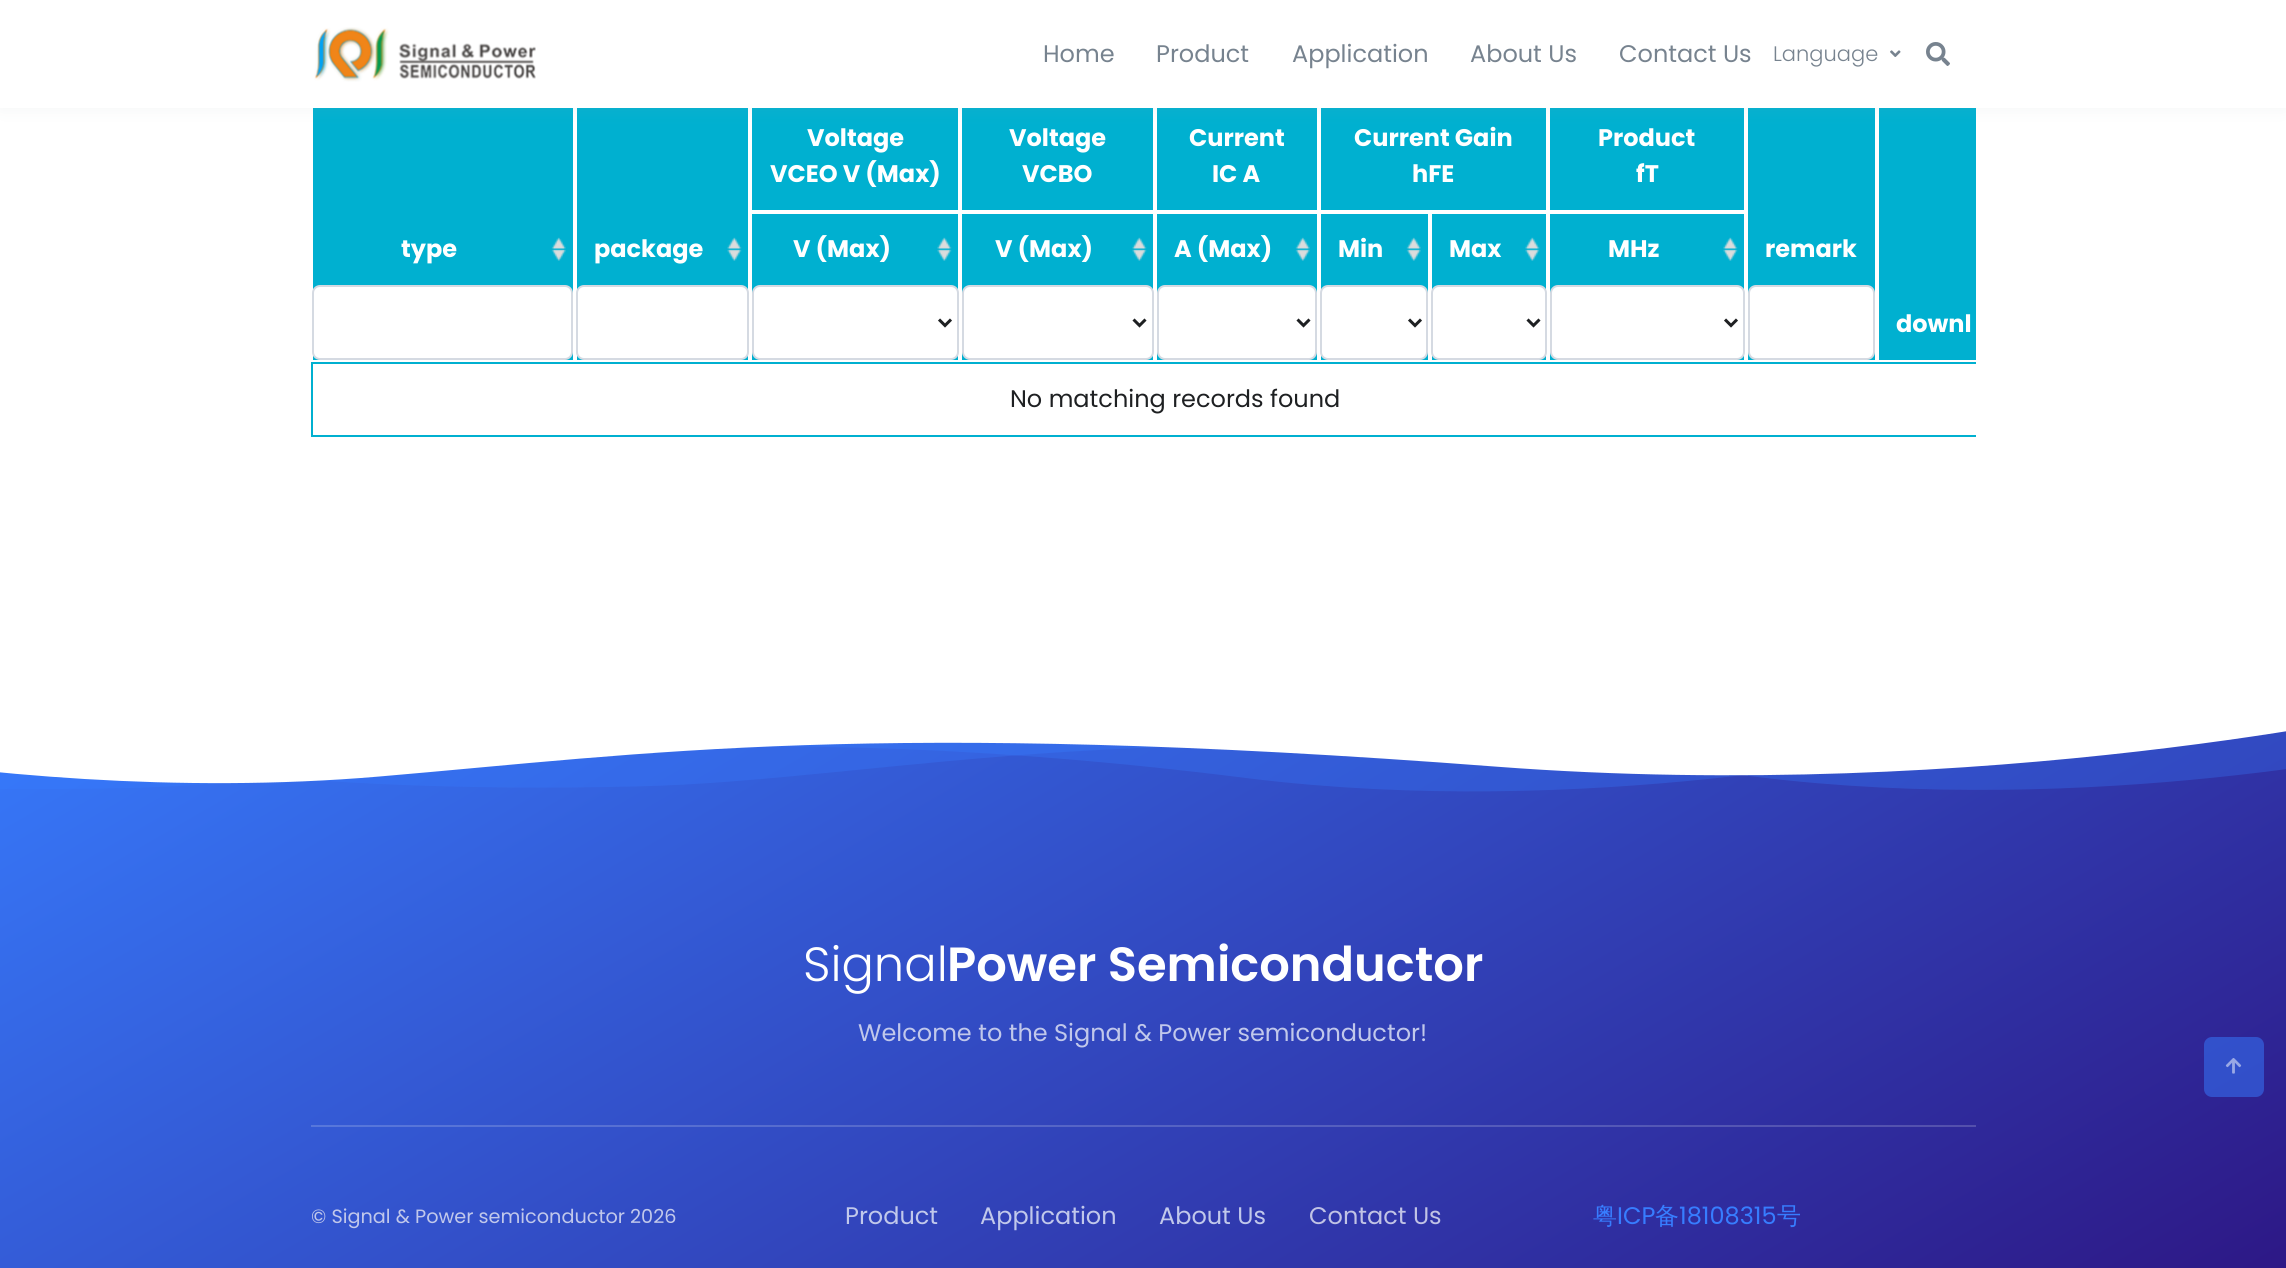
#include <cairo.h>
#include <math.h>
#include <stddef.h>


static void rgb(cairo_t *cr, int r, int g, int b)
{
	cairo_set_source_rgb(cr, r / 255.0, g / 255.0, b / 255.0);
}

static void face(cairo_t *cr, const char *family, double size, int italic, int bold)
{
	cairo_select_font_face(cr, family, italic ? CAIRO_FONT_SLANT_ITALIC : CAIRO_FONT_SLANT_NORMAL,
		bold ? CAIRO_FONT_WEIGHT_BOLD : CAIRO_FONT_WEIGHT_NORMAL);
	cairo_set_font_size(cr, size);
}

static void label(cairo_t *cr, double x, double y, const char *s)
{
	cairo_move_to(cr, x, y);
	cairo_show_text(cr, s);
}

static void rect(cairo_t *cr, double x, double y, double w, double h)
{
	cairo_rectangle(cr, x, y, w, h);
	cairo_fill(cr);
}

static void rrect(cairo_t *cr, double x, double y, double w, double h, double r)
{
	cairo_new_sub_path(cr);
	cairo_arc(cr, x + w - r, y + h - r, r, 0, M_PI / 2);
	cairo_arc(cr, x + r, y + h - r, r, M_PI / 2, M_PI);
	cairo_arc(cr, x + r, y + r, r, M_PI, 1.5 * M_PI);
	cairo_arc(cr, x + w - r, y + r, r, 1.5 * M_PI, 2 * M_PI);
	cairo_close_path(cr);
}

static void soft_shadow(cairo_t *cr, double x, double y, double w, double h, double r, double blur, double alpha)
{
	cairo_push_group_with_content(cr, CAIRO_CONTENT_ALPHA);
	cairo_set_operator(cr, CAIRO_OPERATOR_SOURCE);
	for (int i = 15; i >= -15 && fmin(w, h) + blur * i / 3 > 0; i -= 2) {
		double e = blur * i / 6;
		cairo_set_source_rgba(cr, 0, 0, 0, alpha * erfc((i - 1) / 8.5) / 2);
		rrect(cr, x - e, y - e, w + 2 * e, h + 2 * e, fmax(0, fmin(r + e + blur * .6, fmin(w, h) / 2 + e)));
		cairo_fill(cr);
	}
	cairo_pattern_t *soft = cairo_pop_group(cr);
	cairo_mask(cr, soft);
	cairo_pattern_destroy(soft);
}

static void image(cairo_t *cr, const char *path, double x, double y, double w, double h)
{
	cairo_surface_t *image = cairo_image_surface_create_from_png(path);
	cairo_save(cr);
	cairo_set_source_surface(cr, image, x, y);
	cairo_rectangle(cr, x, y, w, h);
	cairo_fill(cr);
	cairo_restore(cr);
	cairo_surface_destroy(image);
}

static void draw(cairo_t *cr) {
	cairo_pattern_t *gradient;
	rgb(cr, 255, 255, 255);
	cairo_paint(cr);
	rgb(cr, 0, 176, 208);
	rect(cr, 313, 108, 1663, 252);
	cairo_rectangle(cr, 751, 30, 208, 181);
	rgb(cr, 255, 255, 255);
	cairo_stroke(cr);
	cairo_rectangle(cr, 961, 30, 193, 181);
	cairo_stroke(cr);
	cairo_rectangle(cr, 1156, 30, 162, 181);
	cairo_stroke(cr);
	cairo_rectangle(cr, 1320, 30, 227, 181);
	cairo_stroke(cr);
	cairo_rectangle(cr, 1549, 30, 196, 181);
	cairo_stroke(cr);
	cairo_rectangle(cr, 312, 30, 262, 331);
	cairo_stroke(cr);
	cairo_rectangle(cr, 576, 30, 173, 331);
	cairo_stroke(cr);
	cairo_rectangle(cr, 1747, 30, 129, 331);
	cairo_stroke(cr);
	cairo_save(cr);
	cairo_rectangle(cr, 311, 29, 1665, 408);
	cairo_clip(cr);
	cairo_rectangle(cr, 1878, 30, 161, 331);
	cairo_stroke(cr);
	cairo_restore(cr);
	rgb(cr, 151, 164, 175);
	soft_shadow(cr, 0, 2, 2286, 108, 0, 7.5, 0.1);
	rgb(cr, 255, 255, 255);
	rect(cr, 0, 0, 2286, 108);
	image(cr, "image0.png", 314, 27, 222, 55);
	face(cr, "Poppins", 24, 0, 0);
	rgb(cr, 119, 131, 143);
	label(cr, 1043, 62, "Home");
	label(cr, 1156, 62, "Product");
	label(cr, 1292, 62, "Application");
	label(cr, 1470, 62, "About Us");
	label(cr, 1619, 62, "Contact Us");
	face(cr, "Poppins Light", 21, 0, 0);
	label(cr, 1773, 61, "Language");
	image(cr, "image1.png", 1890, 50, 11, 7);
	image(cr, "image2.png", 1926, 42, 24, 24);
	face(cr, "Poppins", 24, 0, 1);
	rgb(cr, 255, 255, 255);
	label(cr, 807, 146, "Voltage");
	label(cr, 770, 182, "VCEO V (Max)");
	label(cr, 1009, 146, "Voltage");
	label(cr, 1022, 182, "VCBO");
	label(cr, 1189, 146, "Current");
	label(cr, 1212, 182, "IC A");
	label(cr, 1354, 146, "Current Gain");
	label(cr, 1412, 182, "hFE");
	label(cr, 1598, 146, "Product");
	label(cr, 1636, 182, "fT");
	image(cr, "image3.png", 551, 237, 15, 24);
	label(cr, 401, 257, "type");
	rrect(cr, 313, 286, 259, 73, 7);
	cairo_fill_preserve(cr);
	rgb(cr, 213, 218, 226);
	cairo_stroke(cr);
	image(cr, "image4.png", 727, 237, 15, 24);
	rgb(cr, 255, 255, 255);
	label(cr, 594, 257, "package");
	rrect(cr, 577, 286, 171, 73, 7);
	cairo_fill_preserve(cr);
	rgb(cr, 213, 218, 226);
	cairo_stroke(cr);
	rgb(cr, 255, 255, 255);
	label(cr, 1765, 257, "remark");
	rrect(cr, 1749, 286, 125, 73, 7);
	cairo_fill_preserve(cr);
	rgb(cr, 213, 218, 226);
	cairo_stroke(cr);
	rgb(cr, 255, 255, 255);
	label(cr, 1896, 332, "downl");
	cairo_rectangle(cr, 751, 213, 208, 148);
	cairo_stroke(cr);
	image(cr, "image5.png", 937, 237, 15, 24);
	label(cr, 793, 257, "V (Max)");
	rrect(cr, 753, 286, 205, 73, 7);
	cairo_fill_preserve(cr);
	rgb(cr, 213, 218, 226);
	cairo_stroke(cr);
	cairo_new_path(cr);
	cairo_move_to(cr, 939, 319.5);
	cairo_line_to(cr, 945, 325.5);
	cairo_line_to(cr, 951, 319.5);
	rgb(cr, 30, 32, 34);
	cairo_set_line_width(cr, 3);
	cairo_stroke(cr);
	cairo_rectangle(cr, 961, 213, 193, 148);
	rgb(cr, 255, 255, 255);
	cairo_set_line_width(cr, 2);
	cairo_stroke(cr);
	image(cr, "image4.png", 1132, 237, 15, 24);
	label(cr, 995, 257, "V (Max)");
	rrect(cr, 963, 286, 190, 73, 7);
	cairo_fill_preserve(cr);
	rgb(cr, 213, 218, 226);
	cairo_stroke(cr);
	cairo_new_path(cr);
	cairo_move_to(cr, 1133.5, 319.5);
	cairo_line_to(cr, 1139.5, 325.5);
	cairo_line_to(cr, 1145.5, 319.5);
	rgb(cr, 30, 32, 34);
	cairo_set_line_width(cr, 3);
	cairo_stroke(cr);
	cairo_rectangle(cr, 1156, 213, 162, 148);
	rgb(cr, 255, 255, 255);
	cairo_set_line_width(cr, 2);
	cairo_stroke(cr);
	image(cr, "image3.png", 1295, 237, 15, 24);
	label(cr, 1174, 257, "A (Max)");
	rrect(cr, 1158, 286, 158, 73, 7);
	cairo_fill_preserve(cr);
	rgb(cr, 213, 218, 226);
	cairo_stroke(cr);
	cairo_new_path(cr);
	cairo_move_to(cr, 1297.5, 319.5);
	cairo_line_to(cr, 1303.5, 325.5);
	cairo_line_to(cr, 1309.5, 319.5);
	rgb(cr, 30, 32, 34);
	cairo_set_line_width(cr, 3);
	cairo_stroke(cr);
	cairo_rectangle(cr, 1320, 213, 109, 148);
	rgb(cr, 255, 255, 255);
	cairo_set_line_width(cr, 2);
	cairo_stroke(cr);
	image(cr, "image3.png", 1406, 237, 15, 24);
	label(cr, 1338, 257, "Min");
	rrect(cr, 1321, 286, 106, 73, 7);
	cairo_fill_preserve(cr);
	rgb(cr, 213, 218, 226);
	cairo_stroke(cr);
	cairo_new_path(cr);
	cairo_move_to(cr, 1409, 319.5);
	cairo_line_to(cr, 1415, 325.5);
	cairo_line_to(cr, 1421, 319.5);
	rgb(cr, 30, 32, 34);
	cairo_set_line_width(cr, 3);
	cairo_stroke(cr);
	cairo_rectangle(cr, 1431, 213, 116, 148);
	rgb(cr, 255, 255, 255);
	cairo_set_line_width(cr, 2);
	cairo_stroke(cr);
	image(cr, "image5.png", 1525, 237, 15, 24);
	label(cr, 1449, 257, "Max");
	rrect(cr, 1432, 286, 114, 73, 7);
	cairo_fill_preserve(cr);
	rgb(cr, 213, 218, 226);
	cairo_stroke(cr);
	cairo_new_path(cr);
	cairo_move_to(cr, 1527.5, 319.5);
	cairo_line_to(cr, 1533.5, 325.5);
	cairo_line_to(cr, 1539.5, 319.5);
	rgb(cr, 30, 32, 34);
	cairo_set_line_width(cr, 3);
	cairo_stroke(cr);
	cairo_rectangle(cr, 1549, 213, 196, 148);
	rgb(cr, 255, 255, 255);
	cairo_set_line_width(cr, 2);
	cairo_stroke(cr);
	image(cr, "image5.png", 1723, 237, 15, 24);
	label(cr, 1608, 257, "MHz");
	rrect(cr, 1551, 286, 193, 73, 7);
	cairo_fill_preserve(cr);
	rgb(cr, 213, 218, 226);
	cairo_stroke(cr);
	cairo_new_path(cr);
	cairo_move_to(cr, 1725, 319.5);
	cairo_line_to(cr, 1731, 325.5);
	cairo_line_to(cr, 1737, 319.5);
	rgb(cr, 30, 32, 34);
	cairo_set_line_width(cr, 3);
	cairo_stroke(cr);
	cairo_save(cr);
	cairo_rectangle(cr, 311, 29, 1665, 408);
	cairo_clip(cr);
	cairo_rectangle(cr, 312, 363, 1727, 73);
	rgb(cr, 0, 176, 208);
	cairo_set_line_width(cr, 2);
	cairo_stroke(cr);
	cairo_restore(cr);
	face(cr, "Poppins", 24, 0, 0);
	label(cr, 1010, 407, "No matching records found");
	gradient = cairo_pattern_create_linear(705, 221, 1581, 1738);
	cairo_pattern_add_color_stop_rgba(gradient, 0, 0.216, 0.49, 1, 1);
	cairo_pattern_add_color_stop_rgba(gradient, 1, 0.176, 0.082, 0.51, 1);
	cairo_set_source(cr, gradient);
	cairo_pattern_destroy(gradient);
	rect(cr, 0, 731, 2286, 537);
	gradient = cairo_pattern_create_linear(705, 221, 1581, 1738);
	cairo_pattern_add_color_stop_rgba(gradient, 0, 0.353, 0.576, 0.992, 1);
	cairo_pattern_add_color_stop_rgba(gradient, 1, 0.322, 0.251, 0.6, 1);
	cairo_set_source(cr, gradient);
	cairo_pattern_destroy(gradient);
	rect(cr, 311, 1125, 1665, 2);
	image(cr, "image6.png", 0, 629, 2286, 163);
	face(cr, "Poppins Light", 48, 0, 0);
	rgb(cr, 255, 255, 255);
	label(cr, 803, 981, "Signal");
	face(cr, "Poppins SemiBold", 48, 0, 0);
	label(cr, 947, 981, "Power Semiconductor");
	face(cr, "Poppins", 24, 0, 0);
	rgb(cr, 193, 200, 235);
	label(cr, 858, 1041, "Welcome to the Signal & Power semiconductor!");
	face(cr, "Poppins", 19.25, 0, 0);
	label(cr, 311, 1223, "© Signal & Power semiconductor 2026");
	face(cr, "Poppins", 24, 0, 0);
	label(cr, 845, 1224, "Product");
	label(cr, 980, 1224, "Application");
	label(cr, 1159, 1224, "About Us");
	rgb(cr, 193, 195, 229);
	label(cr, 1309, 1224, "Contact Us");
	face(cr, "WenQuanYi Zen Hei Medium", 24, 0, 0);
	rgb(cr, 55, 125, 255);
	label(cr, 1593, 1224, "粤");
	face(cr, "Poppins", 24, 0, 0);
	label(cr, 1617, 1224, "ICP");
	face(cr, "WenQuanYi Zen Hei Medium", 24, 0, 0);
	label(cr, 1655, 1224, "备");
	face(cr, "Poppins", 24, 0, 0);
	label(cr, 1679, 1224, "18108315");
	face(cr, "WenQuanYi Zen Hei Medium", 24, 0, 0);
	label(cr, 1777, 1224, "号");
	cairo_set_source_rgba(cr, 0.216, 0.49, 1, 0.5);
	rrect(cr, 2204, 1037, 60, 60, 8);
	cairo_fill(cr);
	image(cr, "image7.png", 2225, 1058, 17, 16);
}

int main(void) {
	cairo_surface_t *surface = cairo_image_surface_create(CAIRO_FORMAT_RGB24, 2286, 1268);
	cairo_t *cr = cairo_create(surface);
	cairo_font_options_t *options = cairo_font_options_create();
	cairo_font_options_set_hint_metrics(options, CAIRO_HINT_METRICS_OFF);
	cairo_font_options_set_hint_style(options, CAIRO_HINT_STYLE_NONE);
	cairo_set_font_options(cr, options);
	cairo_set_miter_limit(cr, 4);
	draw(cr);
	cairo_surface_write_to_png(surface, "render.png");
	cairo_font_options_destroy(options);
	cairo_destroy(cr);
	cairo_surface_destroy(surface);
	return 0;
}
